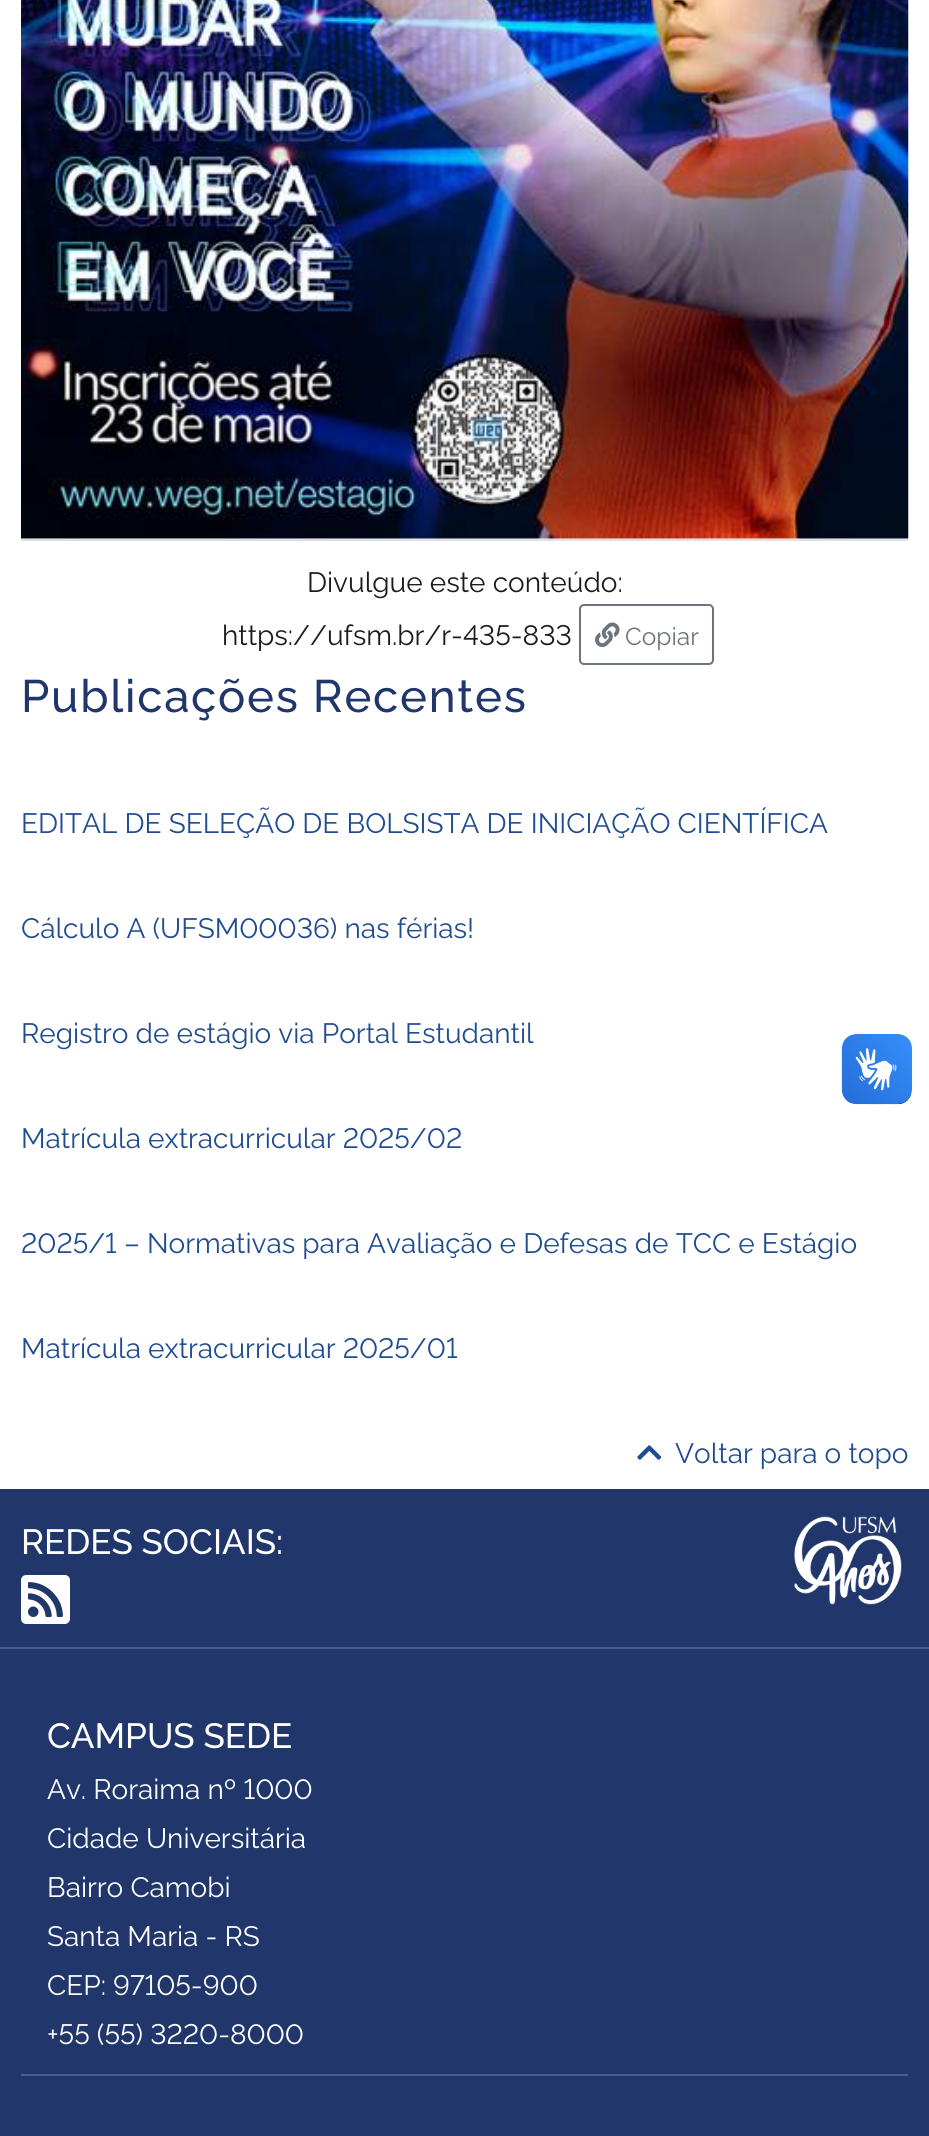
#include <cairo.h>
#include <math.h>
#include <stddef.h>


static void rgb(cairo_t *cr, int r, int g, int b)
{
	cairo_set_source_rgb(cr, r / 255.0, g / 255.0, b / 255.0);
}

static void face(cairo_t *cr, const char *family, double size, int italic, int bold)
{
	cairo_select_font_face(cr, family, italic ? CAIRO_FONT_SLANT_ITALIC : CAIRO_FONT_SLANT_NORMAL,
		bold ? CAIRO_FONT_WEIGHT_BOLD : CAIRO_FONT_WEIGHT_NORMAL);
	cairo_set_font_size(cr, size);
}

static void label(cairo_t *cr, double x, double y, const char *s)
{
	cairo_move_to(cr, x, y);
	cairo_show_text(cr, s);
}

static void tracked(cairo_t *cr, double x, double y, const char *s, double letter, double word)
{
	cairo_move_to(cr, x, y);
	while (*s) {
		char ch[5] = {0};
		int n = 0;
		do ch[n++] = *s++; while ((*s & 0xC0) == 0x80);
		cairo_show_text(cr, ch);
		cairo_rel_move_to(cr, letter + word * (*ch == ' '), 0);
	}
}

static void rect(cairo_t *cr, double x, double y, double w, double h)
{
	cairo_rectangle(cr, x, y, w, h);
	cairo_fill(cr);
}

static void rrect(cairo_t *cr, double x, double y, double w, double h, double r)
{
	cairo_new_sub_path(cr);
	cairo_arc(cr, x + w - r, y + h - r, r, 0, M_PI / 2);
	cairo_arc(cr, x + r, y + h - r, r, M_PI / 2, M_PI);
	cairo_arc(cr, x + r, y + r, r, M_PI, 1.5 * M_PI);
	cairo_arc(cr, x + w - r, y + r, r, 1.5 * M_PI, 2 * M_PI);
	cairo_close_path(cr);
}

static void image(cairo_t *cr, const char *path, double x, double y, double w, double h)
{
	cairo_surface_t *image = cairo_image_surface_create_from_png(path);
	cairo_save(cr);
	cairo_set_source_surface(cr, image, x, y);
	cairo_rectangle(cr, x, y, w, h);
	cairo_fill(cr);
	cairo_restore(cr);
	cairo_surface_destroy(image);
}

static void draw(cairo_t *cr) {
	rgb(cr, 255, 255, 255);
	cairo_paint(cr);
	image(cr, "image0.png", 21, 0, 888, 539);
	rgb(cr, 222, 226, 230);
	rect(cr, 21, 539, 887, 2);
	face(cr, "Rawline", 28, 0, 0);
	rgb(cr, 28, 28, 28);
	label(cr, 307, 592, "Divulgue este conteúdo:");
	label(cr, 222, 645, "https://ufsm.br/r-435-833");
	rrect(cr, 580, 605, 133, 59, 4);
	rgb(cr, 108, 117, 125);
	cairo_stroke(cr);
	image(cr, "image1.png", 595, 622, 25, 26);
	face(cr, "Rawline", 24.5, 0, 0);
	label(cr, 625, 645, "Copiar");
	face(cr, "Rawline Medium", 45.5, 0, 0);
	rgb(cr, 33, 55, 107);
	tracked(cr, 21, 712, "Publicações Recentes", 1.75, 0);
	face(cr, "Rawline", 28, 0, 0);
	rgb(cr, 32, 76, 144);
	label(cr, 21, 833, "EDITAL DE SELEÇÃO DE BOLSISTA DE INICIAÇÃO CIENTÍFICA");
	label(cr, 21, 938, "Cálculo A (UFSM00036) nas férias!");
	label(cr, 21, 1043, "Registro de estágio via Portal Estudantil");
	label(cr, 21, 1148, "Matrícula extracurricular 2025/02");
	label(cr, 21, 1253, "2025/1 – Normativas para Avaliação e Defesas de TCC e Estágio");
	label(cr, 21, 1358, "Matrícula extracurricular 2025/01");
	image(cr, "image2.png", 637, 1445, 25, 15);
	label(cr, 675, 1463, "Voltar para o topo");
	image(cr, "image3.png", 841, 1034, 71, 71);
	image(cr, "image4.png", 842, 1034, 70, 70);
	rgb(cr, 33, 55, 107);
	rect(cr, 0, 1489, 929, 647);
	rgb(cr, 77, 95, 137);
	rect(cr, 0, 1647, 929, 2);
	face(cr, "Rawline Medium", 35, 0, 0);
	rgb(cr, 255, 255, 255);
	label(cr, 21, 1554, "REDES SOCIAIS:");
	image(cr, "image5.png", 21, 1575, 49, 49);
	image(cr, "image6.png", 794, 1516, 108, 89);
	label(cr, 47, 1748, "CAMPUS SEDE");
	face(cr, "Rawline", 28, 0, 0);
	label(cr, 47, 1799, "Av. Roraima nº 1000");
	label(cr, 47, 1848, "Cidade Universitária");
	label(cr, 47, 1897, "Bairro Camobi");
	label(cr, 47, 1946, "Santa Maria - RS");
	label(cr, 47, 1995, "CEP: 97105-900");
	label(cr, 47, 2044, "+55 (55) 3220-8000");
	rgb(cr, 77, 95, 137);
	rect(cr, 21, 2074, 887, 2);
}

int main(void) {
	cairo_surface_t *surface = cairo_image_surface_create(CAIRO_FORMAT_RGB24, 929, 2136);
	cairo_t *cr = cairo_create(surface);
	cairo_font_options_t *options = cairo_font_options_create();
	cairo_font_options_set_hint_metrics(options, CAIRO_HINT_METRICS_OFF);
	cairo_font_options_set_hint_style(options, CAIRO_HINT_STYLE_NONE);
	cairo_set_font_options(cr, options);
	cairo_set_miter_limit(cr, 4);
	draw(cr);
	cairo_surface_write_to_png(surface, "render.png");
	cairo_font_options_destroy(options);
	cairo_destroy(cr);
	cairo_surface_destroy(surface);
	return 0;
}
